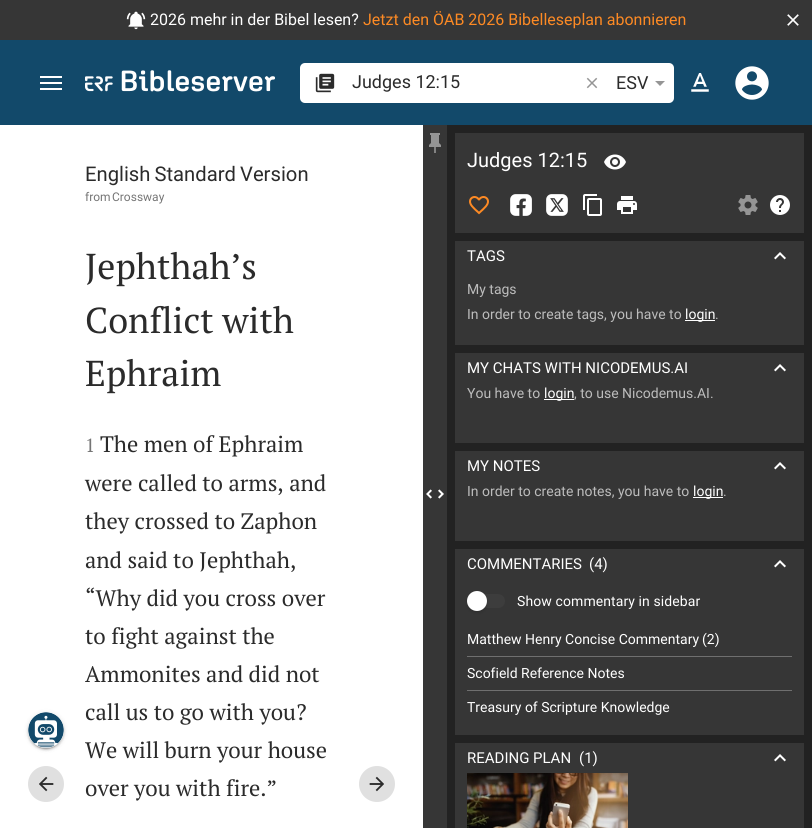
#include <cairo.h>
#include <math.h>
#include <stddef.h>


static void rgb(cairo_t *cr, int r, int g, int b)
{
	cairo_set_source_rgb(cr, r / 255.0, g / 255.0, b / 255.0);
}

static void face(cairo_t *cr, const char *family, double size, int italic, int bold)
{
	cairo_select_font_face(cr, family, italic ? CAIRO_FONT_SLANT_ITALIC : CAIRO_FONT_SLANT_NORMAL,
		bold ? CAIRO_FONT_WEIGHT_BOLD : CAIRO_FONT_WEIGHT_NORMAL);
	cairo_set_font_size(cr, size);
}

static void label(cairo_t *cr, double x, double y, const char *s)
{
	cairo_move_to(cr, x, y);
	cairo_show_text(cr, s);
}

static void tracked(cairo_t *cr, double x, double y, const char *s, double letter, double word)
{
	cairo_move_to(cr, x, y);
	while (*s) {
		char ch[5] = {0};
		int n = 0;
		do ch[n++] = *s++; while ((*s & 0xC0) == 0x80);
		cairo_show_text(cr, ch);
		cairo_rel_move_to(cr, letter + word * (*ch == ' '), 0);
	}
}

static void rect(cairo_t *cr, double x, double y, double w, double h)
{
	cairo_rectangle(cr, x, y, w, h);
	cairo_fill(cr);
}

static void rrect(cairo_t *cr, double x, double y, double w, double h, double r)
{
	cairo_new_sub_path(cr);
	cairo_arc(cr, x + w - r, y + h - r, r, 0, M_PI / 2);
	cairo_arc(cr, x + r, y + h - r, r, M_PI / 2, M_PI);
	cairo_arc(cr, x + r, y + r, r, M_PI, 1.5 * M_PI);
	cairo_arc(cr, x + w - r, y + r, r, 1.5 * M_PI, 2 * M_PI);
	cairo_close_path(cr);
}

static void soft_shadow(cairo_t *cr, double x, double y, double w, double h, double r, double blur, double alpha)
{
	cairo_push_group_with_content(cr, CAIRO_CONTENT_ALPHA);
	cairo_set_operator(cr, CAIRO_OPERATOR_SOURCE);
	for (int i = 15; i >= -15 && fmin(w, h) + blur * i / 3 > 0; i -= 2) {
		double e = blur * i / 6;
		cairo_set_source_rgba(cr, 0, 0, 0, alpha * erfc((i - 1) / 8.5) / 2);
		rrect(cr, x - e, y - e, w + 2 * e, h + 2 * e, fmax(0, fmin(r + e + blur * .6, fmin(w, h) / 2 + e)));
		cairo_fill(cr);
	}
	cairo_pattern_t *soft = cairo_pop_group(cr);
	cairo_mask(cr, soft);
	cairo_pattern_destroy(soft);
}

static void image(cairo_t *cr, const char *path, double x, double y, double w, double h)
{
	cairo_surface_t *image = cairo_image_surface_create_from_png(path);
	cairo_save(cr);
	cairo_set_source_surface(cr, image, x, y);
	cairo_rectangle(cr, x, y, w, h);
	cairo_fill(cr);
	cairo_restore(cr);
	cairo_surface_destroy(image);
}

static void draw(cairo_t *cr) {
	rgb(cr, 255, 255, 255);
	cairo_paint(cr);
	rgb(cr, 54, 54, 54);
	rect(cr, 0, 0, 812, 40);
	image(cr, "image0.png", 126, 11, 20, 19);
	face(cr, "Roboto", 16, 0, 0);
	rgb(cr, 255, 255, 255);
	label(cr, 150, 25, "2026 mehr in der Bibel lesen?");
	rgb(cr, 253, 138, 36);
	label(cr, 363, 25, "Jetzt den ÖAB 2026 Bibelleseplan abonnieren");
	image(cr, "image1.png", 787, 14, 12, 12);
	rgb(cr, 18, 73, 106);
	rect(cr, 0, 40, 812, 85);
	rgb(cr, 255, 255, 255);
	rect(cr, 40, 76, 22, 2);
	rect(cr, 40, 82, 22, 2);
	rect(cr, 40, 88, 22, 2);
	image(cr, "image2.png", 85, 70, 190, 22);
	rrect(cr, 300, 63, 374, 40, 5);
	cairo_fill(cr);
	image(cr, "image3.png", 315, 73, 20, 20);
	face(cr, "Roboto", 18, 0, 0);
	rgb(cr, 43, 43, 43);
	label(cr, 352, 88, "Judges 12:15");
	image(cr, "image4.png", 586, 77, 12, 12);
	label(cr, 616, 89, "ESV");
	rgb(cr, 149, 149, 149);
	cairo_new_path(cr);
	cairo_move_to(cr, 655, 81);
	cairo_line_to(cr, 660, 86);
	cairo_line_to(cr, 665, 81);
	cairo_close_path(cr);
	cairo_fill(cr);
	image(cr, "image5.png", 691, 73, 18, 19);
	image(cr, "image6.png", 735, 66, 34, 34);
	rgb(cr, 0, 0, 0);
	soft_shadow(cr, 28, 713, 36, 36, 18, 2.5, 0.12);
	soft_shadow(cr, 28, 714, 36, 36, 18, 1, 0.14);
	soft_shadow(cr, 30, 717, 32, 32, 16, 0.5, 0.2);
	rgb(cr, 255, 255, 255);
	cairo_arc(cr, 46, 730, 18, 0, 2 * M_PI);
	cairo_fill(cr);
	image(cr, "image7.png", 28, 712, 36, 36);
	rgb(cr, 224, 224, 224);
	cairo_arc(cr, 46, 784, 18, 0, 2 * M_PI);
	cairo_fill(cr);
	image(cr, "image8.png", 39, 776, 15, 16);
	face(cr, "Roboto", 20.25, 0, 0);
	rgb(cr, 43, 43, 43);
	tracked(cr, 85, 181, "English Standard Version", 0, -1);
	face(cr, "Roboto", 12, 0, 0);
	rgb(cr, 117, 117, 117);
	label(cr, 85, 201, "from");
	label(cr, 112, 201, "Crossway");
	face(cr, "PT Serif", 36, 0, 0);
	rgb(cr, 43, 43, 43);
	label(cr, 85, 279, "Jephthah’s");
	label(cr, 85, 333, "Conflict with");
	label(cr, 85, 386, "Ephraim");
	face(cr, "PT Serif", 19, 0, 0);
	rgb(cr, 117, 117, 117);
	label(cr, 85, 452, "1");
	face(cr, "PT Serif", 22.4, 0, 0);
	rgb(cr, 43, 43, 43);
	label(cr, 100, 452, "The men of Ephraim");
	label(cr, 85, 491, "were called to arms, and");
	label(cr, 85, 529, "they crossed to Zaphon");
	label(cr, 85, 568, "and said to Jephthah,");
	label(cr, 85, 606, "“Why did you cross over");
	label(cr, 85, 644, "to fight against the");
	label(cr, 85, 682, "Ammonites and did not");
	label(cr, 85, 720, "call us to go with you?");
	label(cr, 85, 758, "We will burn your house");
	label(cr, 85, 796, "over you with fire.”");
	rgb(cr, 224, 224, 224);
	cairo_new_path(cr);
	cairo_arc(cr, 377, 784, 18, 0, 2 * M_PI);
	cairo_fill(cr);
	image(cr, "image9.png", 369, 776, 15, 16);
	rgb(cr, 54, 54, 54);
	rect(cr, 423, 125, 24, 703);
	image(cr, "image10.png", 429, 133, 12, 20);
	image(cr, "image11.png", 426, 489, 18, 10);
	rgb(cr, 34, 34, 34);
	rect(cr, 447, 125, 365, 703);
	rgb(cr, 54, 54, 54);
	rect(cr, 455, 133, 349, 100);
	face(cr, "Roboto", 20, 0, 0);
	rgb(cr, 255, 255, 255);
	label(cr, 467, 167, "Judges 12:15");
	image(cr, "image12.png", 604, 154, 22, 16);
	image(cr, "image13.png", 469, 196, 20, 19);
	image(cr, "image14.png", 510, 194, 22, 22);
	image(cr, "image15.png", 546, 194, 22, 22);
	image(cr, "image16.png", 583, 194, 19, 22);
	image(cr, "image17.png", 617, 196, 20, 18);
	image(cr, "image18.png", 738, 195, 20, 20);
	image(cr, "image19.png", 770, 195, 20, 20);
	rgb(cr, 54, 54, 54);
	rect(cr, 455, 241, 349, 104);
	face(cr, "Roboto", 15, 0, 0);
	rgb(cr, 255, 255, 255);
	label(cr, 467, 261, "TAGS");
	image(cr, "image20.png", 774, 252, 12, 8);
	face(cr, "Roboto", 14, 0, 0);
	rgb(cr, 189, 189, 189);
	label(cr, 467, 294, "My tags");
	label(cr, 467, 319, "In order to create tags, you have to");
	rgb(cr, 255, 255, 255);
	rect(cr, 685, 320, 30, 1);
	label(cr, 685, 319, "login");
	rgb(cr, 189, 189, 189);
	label(cr, 715, 319, ".");
	rgb(cr, 54, 54, 54);
	rect(cr, 455, 353, 349, 90);
	face(cr, "Roboto", 15, 0, 0);
	rgb(cr, 255, 255, 255);
	label(cr, 467, 373, "MY CHATS WITH NICODEMUS.AI");
	image(cr, "image20.png", 774, 364, 12, 8);
	face(cr, "Roboto", 14, 0, 0);
	rgb(cr, 189, 189, 189);
	label(cr, 467, 398, "You have to");
	rgb(cr, 255, 255, 255);
	rect(cr, 544, 399, 30, 1);
	label(cr, 544, 398, "login");
	rgb(cr, 189, 189, 189);
	label(cr, 574, 398, ", to use Nicodemus.AI.");
	rgb(cr, 54, 54, 54);
	rect(cr, 455, 451, 349, 90);
	face(cr, "Roboto", 15, 0, 0);
	rgb(cr, 255, 255, 255);
	label(cr, 467, 471, "MY NOTES");
	image(cr, "image20.png", 774, 462, 12, 8);
	face(cr, "Roboto", 14, 0, 0);
	rgb(cr, 189, 189, 189);
	label(cr, 467, 496, "In order to create notes, you have to");
	rgb(cr, 255, 255, 255);
	rect(cr, 693, 497, 30, 1);
	label(cr, 693, 496, "login");
	rgb(cr, 189, 189, 189);
	label(cr, 723, 496, ".");
	rgb(cr, 54, 54, 54);
	rect(cr, 455, 549, 349, 186);
	face(cr, "Roboto", 15, 0, 0);
	rgb(cr, 255, 255, 255);
	label(cr, 467, 569, "COMMENTARIES");
	label(cr, 589, 569, "(4)");
	image(cr, "image20.png", 774, 560, 12, 8);
	rgb(cr, 61, 61, 61);
	rrect(cr, 469, 594, 36, 14, 7);
	cairo_fill(cr);
	rgb(cr, 0, 0, 0);
	soft_shadow(cr, 468, 594, 18, 18, 9, 2, 0.2);
	rgb(cr, 255, 255, 255);
	cairo_arc(cr, 477, 601, 10, 0, 2 * M_PI);
	cairo_fill(cr);
	face(cr, "Roboto", 14, 0, 0);
	tracked(cr, 517, 606, "Show commentary in sidebar", 0.1, 0);
	label(cr, 467, 644, "Matthew Henry Concise Commentary");
	label(cr, 702, 644, "(2)");
	rgb(cr, 111, 111, 111);
	rect(cr, 467, 656, 325, 1);
	rgb(cr, 255, 255, 255);
	label(cr, 467, 678, "Scofield Reference Notes");
	rgb(cr, 111, 111, 111);
	rect(cr, 467, 690, 325, 1);
	rgb(cr, 255, 255, 255);
	label(cr, 467, 712, "Treasury of Scripture Knowledge");
	rgb(cr, 54, 54, 54);
	rect(cr, 455, 743, 349, 85);
	face(cr, "Roboto", 15, 0, 0);
	rgb(cr, 255, 255, 255);
	label(cr, 467, 763, "READING PLAN");
	label(cr, 579, 763, "(1)");
	image(cr, "image20.png", 774, 754, 12, 8);
	image(cr, "image21.png", 467, 773, 161, 55);
}

int main(void) {
	cairo_surface_t *surface = cairo_image_surface_create(CAIRO_FORMAT_RGB24, 812, 828);
	cairo_t *cr = cairo_create(surface);
	cairo_font_options_t *options = cairo_font_options_create();
	cairo_font_options_set_hint_metrics(options, CAIRO_HINT_METRICS_OFF);
	cairo_font_options_set_hint_style(options, CAIRO_HINT_STYLE_NONE);
	cairo_set_font_options(cr, options);
	cairo_set_miter_limit(cr, 4);
	draw(cr);
	cairo_surface_write_to_png(surface, "render.png");
	cairo_font_options_destroy(options);
	cairo_destroy(cr);
	cairo_surface_destroy(surface);
	return 0;
}
